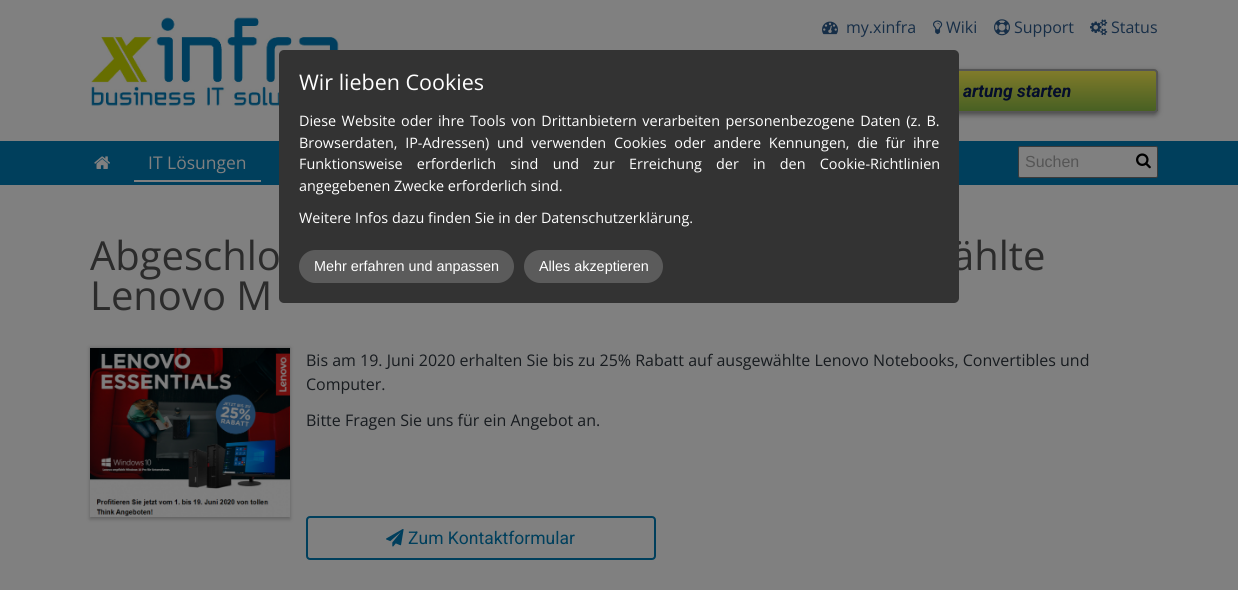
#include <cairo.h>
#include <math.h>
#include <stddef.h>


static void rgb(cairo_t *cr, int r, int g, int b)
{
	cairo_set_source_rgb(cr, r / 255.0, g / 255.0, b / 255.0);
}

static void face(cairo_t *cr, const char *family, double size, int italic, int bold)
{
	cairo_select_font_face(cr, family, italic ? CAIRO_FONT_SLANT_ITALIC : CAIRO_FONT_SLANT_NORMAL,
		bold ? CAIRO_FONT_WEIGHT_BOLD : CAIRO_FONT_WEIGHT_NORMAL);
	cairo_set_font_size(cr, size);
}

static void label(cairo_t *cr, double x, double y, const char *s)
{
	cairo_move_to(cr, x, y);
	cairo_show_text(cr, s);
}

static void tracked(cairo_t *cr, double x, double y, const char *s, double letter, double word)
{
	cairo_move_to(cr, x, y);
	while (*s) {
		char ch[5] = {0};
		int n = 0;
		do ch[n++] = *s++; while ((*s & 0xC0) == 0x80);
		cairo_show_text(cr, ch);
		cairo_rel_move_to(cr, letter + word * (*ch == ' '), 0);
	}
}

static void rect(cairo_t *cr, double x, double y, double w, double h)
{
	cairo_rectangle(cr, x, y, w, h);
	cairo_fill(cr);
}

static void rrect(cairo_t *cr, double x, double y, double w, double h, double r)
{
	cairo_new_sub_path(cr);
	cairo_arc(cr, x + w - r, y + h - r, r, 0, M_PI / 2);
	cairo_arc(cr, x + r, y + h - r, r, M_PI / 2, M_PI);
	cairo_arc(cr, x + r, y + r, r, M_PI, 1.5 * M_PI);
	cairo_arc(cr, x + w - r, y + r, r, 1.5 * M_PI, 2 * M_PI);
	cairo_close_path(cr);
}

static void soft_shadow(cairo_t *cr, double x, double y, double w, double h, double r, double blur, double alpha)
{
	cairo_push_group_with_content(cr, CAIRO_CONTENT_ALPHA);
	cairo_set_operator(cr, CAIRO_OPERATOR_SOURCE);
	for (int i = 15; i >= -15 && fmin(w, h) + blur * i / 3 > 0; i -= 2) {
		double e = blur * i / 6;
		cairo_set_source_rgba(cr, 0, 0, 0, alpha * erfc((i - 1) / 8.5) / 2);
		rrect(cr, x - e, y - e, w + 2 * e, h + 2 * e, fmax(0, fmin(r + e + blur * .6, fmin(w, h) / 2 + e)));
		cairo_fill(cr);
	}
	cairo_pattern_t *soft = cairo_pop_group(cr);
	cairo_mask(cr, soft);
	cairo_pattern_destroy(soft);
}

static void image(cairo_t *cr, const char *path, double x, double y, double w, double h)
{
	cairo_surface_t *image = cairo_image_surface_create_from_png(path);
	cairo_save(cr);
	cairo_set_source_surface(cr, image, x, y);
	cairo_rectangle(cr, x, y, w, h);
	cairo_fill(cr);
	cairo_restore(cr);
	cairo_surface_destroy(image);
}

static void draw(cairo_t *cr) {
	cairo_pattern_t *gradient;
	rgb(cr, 128, 128, 128);
	cairo_paint(cr);
	image(cr, "image0.png", 91, 17, 248, 89);
	image(cr, "image1.png", 822, 21, 16, 14);
	face(cr, "Open Sans", 16, 0, 0);
	rgb(cr, 23, 46, 71);
	label(cr, 846, 33, "my.xinfra");
	image(cr, "image2.png", 933, 20, 10, 15);
	label(cr, 946, 33, "Wiki");
	image(cr, "image3.png", 994, 19, 16, 17);
	label(cr, 1014, 33, "Support");
	image(cr, "image4.png", 1090, 19, 18, 17);
	label(cr, 1111, 33, "Status");
	rgb(cr, 0, 0, 0);
	soft_shadow(cr, 806, 71, 352, 44, 4, 2.5, 0.4);
	gradient = cairo_pattern_create_linear(982, 71, 982, 111);
	cairo_pattern_add_color_stop_rgba(gradient, 0, 0.502, 0.482, 0.165, 1);
	cairo_pattern_add_color_stop_rgba(gradient, 1, 0.282, 0.376, 0.137, 1);
	cairo_set_source(cr, gradient);
	cairo_pattern_destroy(gradient);
	rect(cr, 959, 71, 199, 40);
	rrect(cr, 807, 70, 350, 42, 3);
	rgb(cr, 85, 85, 85);
	cairo_stroke(cr);
	face(cr, "Roboto", 17.5, 1, 1);
	rgb(cr, 5, 14, 44);
	label(cr, 963, 97, "artung starten");
	rgb(cr, 0, 63, 92);
	rect(cr, 0, 141, 1238, 44);
	image(cr, "image5.png", 94, 156, 16, 13);
	rgb(cr, 128, 128, 128);
	rect(cr, 134, 180, 127, 2);
	face(cr, "Open Sans", 17.5, 0, 0);
	label(cr, 148, 169, "IT Lösungen");
	rrect(cr, 1018.5, 146.5, 139, 31, 1.5);
	cairo_fill_preserve(cr);
	rgb(cr, 59, 59, 59);
	cairo_set_line_width(cr, 1);
	cairo_stroke(cr);
	face(cr, "Liberation Sans", 16, 0, 0);
	rgb(cr, 85, 85, 85);
	label(cr, 1025, 167, "Suchen");
	image(cr, "image6.png", 1136, 153, 15, 16);
	face(cr, "Open Sans", 40, 0, 0);
	rgb(cr, 43, 43, 43);
	label(cr, 90, 270, "Abgeschlo");
	label(cr, 952, 270, "ählte");
	label(cr, 90, 310, "Lenovo M");
	rgb(cr, 0, 0, 0);
	soft_shadow(cr, 90, 348, 200, 171, 0, 2, 0.25);
	image(cr, "image7.png", 90, 348, 200, 169);
	face(cr, "Open Sans", 16, 0, 0);
	rgb(cr, 23, 27, 31);
	label(cr, 306, 366, "Bis am 19. Juni 2020 erhalten Sie bis zu 25% Rabatt auf ausgewählte Lenovo Notebooks, Convertibles und");
	label(cr, 306, 390, "Computer.");
	label(cr, 306, 426, "Bitte Fragen Sie uns für ein Angebot an.");
	rrect(cr, 307, 517, 348, 42, 3);
	rgb(cr, 0, 63, 92);
	cairo_set_line_width(cr, 2);
	cairo_stroke(cr);
	image(cr, "image8.png", 386, 529, 18, 18);
	face(cr, "Roboto", 17.5, 0, 0);
	label(cr, 408, 544, "Zum Kontaktformular");
	rgb(cr, 51, 51, 51);
	rrect(cr, 279, 50, 680, 253, 5);
	cairo_fill(cr);
	face(cr, "Open Sans", 21.5, 0, 0);
	rgb(cr, 255, 255, 255);
	label(cr, 299, 90, "Wir lieben Cookies");
	face(cr, "Open Sans", 14.4, 0, 0);
	tracked(cr, 299, 126, "Diese Website oder ihre Tools von Drittanbietern verarbeiten personenbezogene Daten (z. B.", 0, 1.75);
	tracked(cr, 299, 148, "Browserdaten, IP-Adressen) und verwenden Cookies oder andere Kennungen, die für ihre", 0, 4);
	tracked(cr, 299, 169, "Funktionsweise erforderlich sind und zur Erreichung der in den Cookie-Richtlinien", 0, 10.5);
	label(cr, 299, 191, "angegebenen Zwecke erforderlich sind.");
	label(cr, 299, 223, "Weitere Infos dazu finden Sie in der Datenschutzerklärung.");
	rgb(cr, 91, 91, 91);
	rrect(cr, 299, 250, 215, 33, 16.5);
	cairo_fill(cr);
	face(cr, "Liberation Sans", 14.4, 0, 0);
	rgb(cr, 255, 255, 255);
	label(cr, 314, 271, "Mehr erfahren und anpassen");
	rgb(cr, 91, 91, 91);
	rrect(cr, 524, 250, 139, 33, 16.5);
	cairo_fill(cr);
	rgb(cr, 255, 255, 255);
	label(cr, 539, 271, "Alles akzeptieren");
}

int main(void) {
	cairo_surface_t *surface = cairo_image_surface_create(CAIRO_FORMAT_RGB24, 1238, 590);
	cairo_t *cr = cairo_create(surface);
	cairo_font_options_t *options = cairo_font_options_create();
	cairo_font_options_set_hint_metrics(options, CAIRO_HINT_METRICS_OFF);
	cairo_font_options_set_hint_style(options, CAIRO_HINT_STYLE_NONE);
	cairo_set_font_options(cr, options);
	cairo_set_miter_limit(cr, 4);
	draw(cr);
	cairo_surface_write_to_png(surface, "render.png");
	cairo_font_options_destroy(options);
	cairo_destroy(cr);
	cairo_surface_destroy(surface);
	return 0;
}
